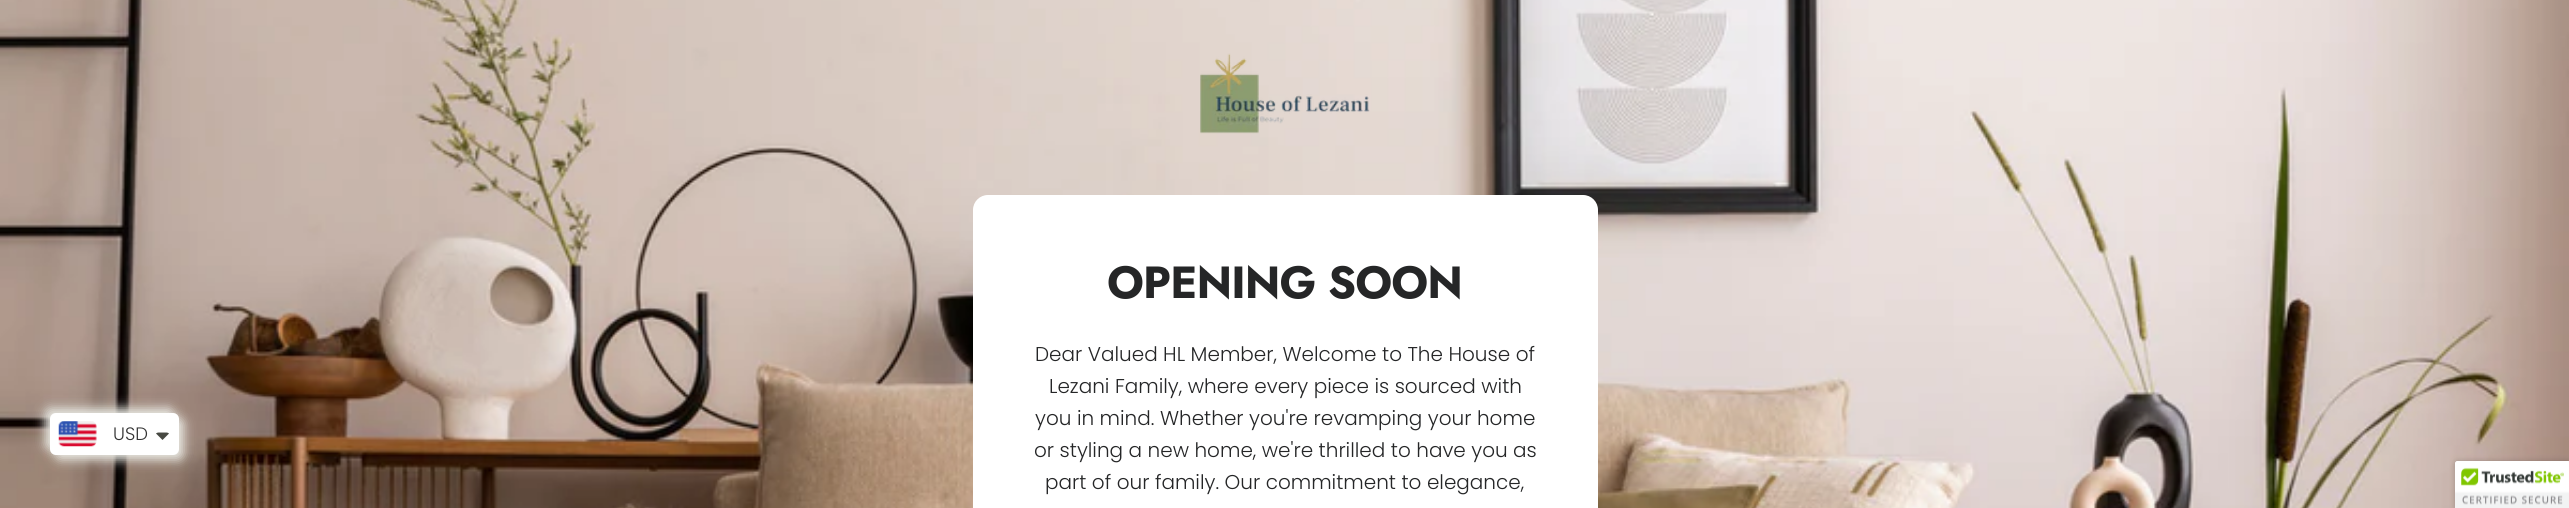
#include <cairo.h>
#include <math.h>
#include <stddef.h>


static void rgb(cairo_t *cr, int r, int g, int b)
{
	cairo_set_source_rgb(cr, r / 255.0, g / 255.0, b / 255.0);
}

static void face(cairo_t *cr, const char *family, double size, int italic, int bold)
{
	cairo_select_font_face(cr, family, italic ? CAIRO_FONT_SLANT_ITALIC : CAIRO_FONT_SLANT_NORMAL,
		bold ? CAIRO_FONT_WEIGHT_BOLD : CAIRO_FONT_WEIGHT_NORMAL);
	cairo_set_font_size(cr, size);
}

static void label(cairo_t *cr, double x, double y, const char *s)
{
	cairo_move_to(cr, x, y);
	cairo_show_text(cr, s);
}

static void tracked(cairo_t *cr, double x, double y, const char *s, double letter, double word)
{
	cairo_move_to(cr, x, y);
	while (*s) {
		char ch[5] = {0};
		int n = 0;
		do ch[n++] = *s++; while ((*s & 0xC0) == 0x80);
		cairo_show_text(cr, ch);
		cairo_rel_move_to(cr, letter + word * (*ch == ' '), 0);
	}
}

static void rrect(cairo_t *cr, double x, double y, double w, double h, double r)
{
	cairo_new_sub_path(cr);
	cairo_arc(cr, x + w - r, y + h - r, r, 0, M_PI / 2);
	cairo_arc(cr, x + r, y + h - r, r, M_PI / 2, M_PI);
	cairo_arc(cr, x + r, y + r, r, M_PI, 1.5 * M_PI);
	cairo_arc(cr, x + w - r, y + r, r, 1.5 * M_PI, 2 * M_PI);
	cairo_close_path(cr);
}

static void soft_shadow(cairo_t *cr, double x, double y, double w, double h, double r, double blur, double alpha)
{
	cairo_push_group_with_content(cr, CAIRO_CONTENT_ALPHA);
	cairo_set_operator(cr, CAIRO_OPERATOR_SOURCE);
	for (int i = 15; i >= -15 && fmin(w, h) + blur * i / 3 > 0; i -= 2) {
		double e = blur * i / 6;
		cairo_set_source_rgba(cr, 0, 0, 0, alpha * erfc((i - 1) / 8.5) / 2);
		rrect(cr, x - e, y - e, w + 2 * e, h + 2 * e, fmax(0, fmin(r + e + blur * .6, fmin(w, h) / 2 + e)));
		cairo_fill(cr);
	}
	cairo_pattern_t *soft = cairo_pop_group(cr);
	cairo_mask(cr, soft);
	cairo_pattern_destroy(soft);
}

static void image(cairo_t *cr, const char *path, double x, double y, double w, double h)
{
	cairo_surface_t *image = cairo_image_surface_create_from_png(path);
	cairo_save(cr);
	cairo_set_source_surface(cr, image, x, y);
	cairo_rectangle(cr, x, y, w, h);
	cairo_fill(cr);
	cairo_restore(cr);
	cairo_surface_destroy(image);
}

static void draw(cairo_t *cr) {
	rgb(cr, 255, 255, 255);
	cairo_paint(cr);
	image(cr, "image1.png", 0, 0, 2569, 508);
	rgb(cr, 232, 232, 226);
	soft_shadow(cr, 45, 408, 129, 42, 6, 5.5, 1);
	soft_shadow(cr, 55, 418, 129, 42, 6, 5.5, 1);
	rgb(cr, 255, 255, 255);
	rrect(cr, 50, 413, 129, 42, 6);
	cairo_fill(cr);
	image(cr, "image0.png", 58, 421, 39, 26);
	face(cr, "Poppins Light", 18, 0, 0);
	rgb(cr, 51, 51, 51);
	label(cr, 113, 440, "USD");
	rgb(cr, 71, 73, 66);
	cairo_new_path(cr);
	cairo_move_to(cr, 159, 432.5);
	cairo_curve_to(cr, 157.5, 432.5, 156.5, 433, 156, 433.5);
	cairo_line_to(cr, 162.5, 440);
	cairo_line_to(cr, 169, 433.5);
	cairo_curve_to(cr, 168.5, 433, 167.5, 432.5, 166, 432.5);
	cairo_close_path(cr);
	cairo_fill(cr);
	image(cr, "image2.png", 1200, 53, 170, 81);
	rgb(cr, 255, 255, 255);
	rrect(cr, 973, 195, 625, 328, 15);
	cairo_fill(cr);
	face(cr, "Jost", 45, 0, 1);
	rgb(cr, 37, 38, 39);
	tracked(cr, 1107, 298, "OPENING SOON", -0.9, 0);
	face(cr, "Poppins Light", 20, 0, 0);
	label(cr, 1035, 361, "Dear Valued HL Member, Welcome to The House of");
	label(cr, 1049, 393, "Lezani Family, where every piece is sourced with");
	label(cr, 1035, 425, "you in mind. Whether you're revamping your home");
	label(cr, 1034, 457, "or styling a new home, we're thrilled to have you as");
	label(cr, 1045, 489, "part of our family. Our commitment to elegance,");
	rgb(cr, 0, 0, 0);
	soft_shadow(cr, 2455, 461, 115, 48, 2.5, 3, 0.2);
	rgb(cr, 255, 255, 255);
	cairo_new_path(cr);
	cairo_move_to(cr, 2457.5, 461);
	cairo_line_to(cr, 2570, 461);
	cairo_line_to(cr, 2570, 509);
	cairo_line_to(cr, 2455, 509);
	cairo_line_to(cr, 2455, 463.5);
	cairo_curve_to(cr, 2455, 462, 2456, 461, 2457.5, 461);
	cairo_close_path(cr);
	cairo_fill(cr);
	image(cr, "image3.png", 2455, 461, 114, 47);
}

int main(void) {
	cairo_surface_t *surface = cairo_image_surface_create(CAIRO_FORMAT_RGB24, 2569, 508);
	cairo_t *cr = cairo_create(surface);
	cairo_font_options_t *options = cairo_font_options_create();
	cairo_font_options_set_hint_metrics(options, CAIRO_HINT_METRICS_OFF);
	cairo_font_options_set_hint_style(options, CAIRO_HINT_STYLE_NONE);
	cairo_set_font_options(cr, options);
	cairo_set_miter_limit(cr, 4);
	draw(cr);
	cairo_surface_write_to_png(surface, "render.png");
	cairo_font_options_destroy(options);
	cairo_destroy(cr);
	cairo_surface_destroy(surface);
	return 0;
}
